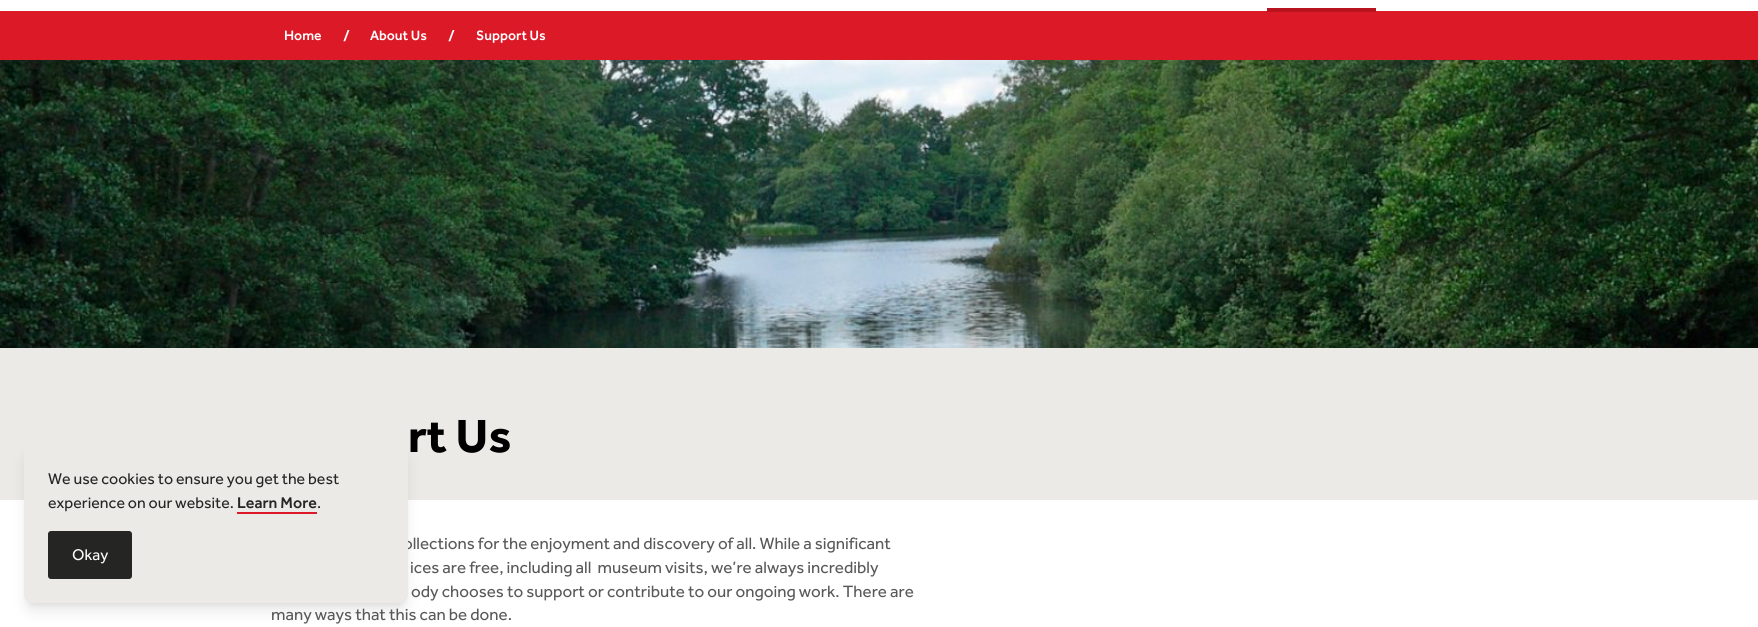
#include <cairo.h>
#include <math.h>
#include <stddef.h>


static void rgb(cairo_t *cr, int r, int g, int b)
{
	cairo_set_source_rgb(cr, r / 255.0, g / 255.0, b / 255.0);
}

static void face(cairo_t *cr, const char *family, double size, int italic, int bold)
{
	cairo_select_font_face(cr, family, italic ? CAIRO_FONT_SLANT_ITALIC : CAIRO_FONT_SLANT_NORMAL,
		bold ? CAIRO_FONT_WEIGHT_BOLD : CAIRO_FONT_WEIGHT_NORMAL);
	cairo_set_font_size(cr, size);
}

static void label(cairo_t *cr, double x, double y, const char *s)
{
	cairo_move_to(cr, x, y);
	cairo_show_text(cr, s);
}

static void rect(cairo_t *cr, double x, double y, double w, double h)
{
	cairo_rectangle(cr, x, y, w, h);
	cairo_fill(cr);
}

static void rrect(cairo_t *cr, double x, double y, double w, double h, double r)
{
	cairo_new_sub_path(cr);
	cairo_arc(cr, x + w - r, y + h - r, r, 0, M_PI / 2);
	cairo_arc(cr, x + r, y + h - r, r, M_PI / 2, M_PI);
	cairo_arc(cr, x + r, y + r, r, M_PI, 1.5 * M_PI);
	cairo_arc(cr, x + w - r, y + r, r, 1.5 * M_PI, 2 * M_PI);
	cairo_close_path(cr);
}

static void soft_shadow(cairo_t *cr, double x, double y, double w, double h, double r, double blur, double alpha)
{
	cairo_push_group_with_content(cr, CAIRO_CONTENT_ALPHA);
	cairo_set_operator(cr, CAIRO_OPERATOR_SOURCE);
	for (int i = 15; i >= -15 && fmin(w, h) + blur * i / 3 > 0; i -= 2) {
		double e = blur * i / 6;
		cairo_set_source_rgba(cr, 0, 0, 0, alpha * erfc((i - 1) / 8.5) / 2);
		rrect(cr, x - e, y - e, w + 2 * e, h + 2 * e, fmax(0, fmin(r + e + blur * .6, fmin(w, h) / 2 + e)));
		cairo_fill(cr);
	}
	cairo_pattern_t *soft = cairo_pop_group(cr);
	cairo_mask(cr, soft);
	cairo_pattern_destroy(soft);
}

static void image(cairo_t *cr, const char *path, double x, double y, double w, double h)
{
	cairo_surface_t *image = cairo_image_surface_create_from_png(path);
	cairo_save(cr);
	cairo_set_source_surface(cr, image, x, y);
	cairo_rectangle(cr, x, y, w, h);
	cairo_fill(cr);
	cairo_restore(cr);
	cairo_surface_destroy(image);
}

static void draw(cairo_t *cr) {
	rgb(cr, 255, 255, 255);
	cairo_paint(cr);
	rgb(cr, 236, 234, 230);
	rect(cr, 0, 348, 1758, 152);
	rgb(cr, 0, 0, 0);
	soft_shadow(cr, 28, 451, 376, 152, 4, 3, 0.1);
	soft_shadow(cr, 27, 456, 378, 154, 5, 7.5, 0.1);
	face(cr, "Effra", 17, 0, 0);
	rgb(cr, 89, 89, 89);
	label(cr, 403, 549, "ollections for the enjoyment and discovery of all. While a significant");
	rgb(cr, 236, 234, 230);
	rrect(cr, 24, 443, 384, 160, 8);
	cairo_fill(cr);
	face(cr, "Effra", 16, 0, 0);
	rgb(cr, 37, 37, 36);
	label(cr, 48, 484, "We use cookies to ensure you get the best");
	label(cr, 48, 508, "experience on our website.");
	face(cr, "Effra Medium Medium", 16, 0, 0);
	label(cr, 237, 508, "Learn More");
	rgb(cr, 220, 25, 38);
	rect(cr, 237, 512, 80, 2);
	face(cr, "Effra", 16, 0, 0);
	rgb(cr, 37, 37, 36);
	label(cr, 317, 508, ".");
	rrect(cr, 48, 531, 84, 48, 3);
	cairo_fill(cr);
	rgb(cr, 255, 255, 255);
	label(cr, 72, 560, "Okay");
	rgb(cr, 220, 25, 38);
	rect(cr, 0, 11, 1758, 49);
	rgb(cr, 184, 20, 31);
	rect(cr, 1267, 8, 109, 4);
	face(cr, "Effra Medium Medium", 14, 0, 0);
	rgb(cr, 255, 255, 255);
	label(cr, 284, 40, "Home");
	face(cr, "Effra Medium Medium", 16, 0, 0);
	label(cr, 343, 41, "/");
	face(cr, "Effra Medium Medium", 14, 0, 0);
	label(cr, 370, 40, "About Us");
	face(cr, "Effra Medium Medium", 16, 0, 0);
	label(cr, 448, 41, "/");
	face(cr, "Effra Medium Medium", 14, 0, 0);
	label(cr, 476, 40, "Support Us");
	image(cr, "image0.png", 0, 60, 1758, 288);
	face(cr, "Effra", 48, 0, 1);
	rgb(cr, 0, 0, 0);
	label(cr, 408, 452, "rt Us");
	face(cr, "Effra", 17, 0, 0);
	rgb(cr, 89, 89, 89);
	label(cr, 410, 573, "ices are free, including all  museum visits, we’re always incredibly");
	label(cr, 411, 597, "ody chooses to support or contribute to our ongoing work. There are");
	label(cr, 271, 620, "many ways that this can be done.");
}

int main(void) {
	cairo_surface_t *surface = cairo_image_surface_create(CAIRO_FORMAT_RGB24, 1758, 627);
	cairo_t *cr = cairo_create(surface);
	cairo_font_options_t *options = cairo_font_options_create();
	cairo_font_options_set_hint_metrics(options, CAIRO_HINT_METRICS_OFF);
	cairo_font_options_set_hint_style(options, CAIRO_HINT_STYLE_NONE);
	cairo_set_font_options(cr, options);
	cairo_set_miter_limit(cr, 4);
	draw(cr);
	cairo_surface_write_to_png(surface, "render.png");
	cairo_font_options_destroy(options);
	cairo_destroy(cr);
	cairo_surface_destroy(surface);
	return 0;
}
